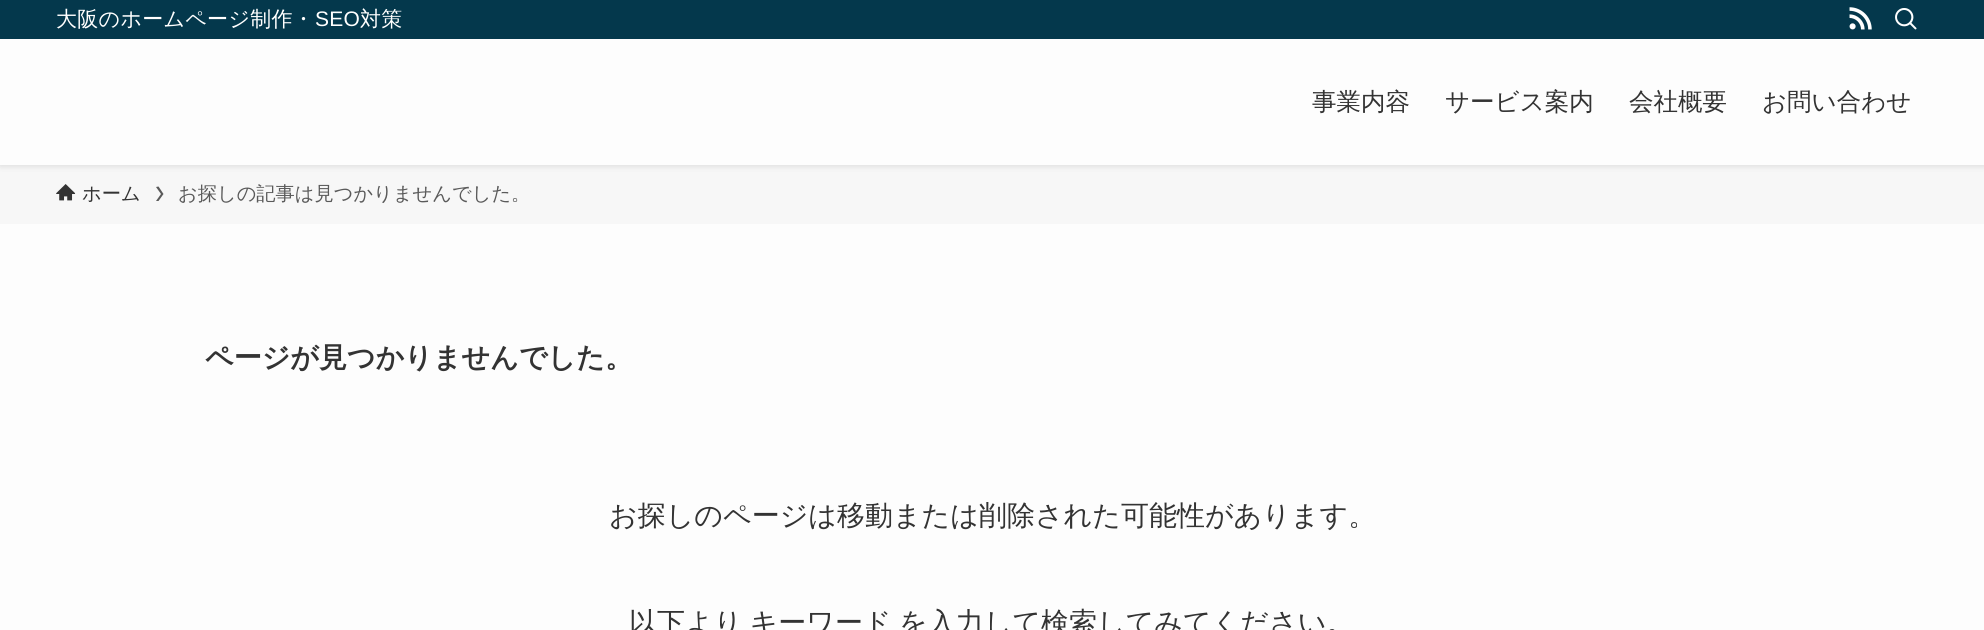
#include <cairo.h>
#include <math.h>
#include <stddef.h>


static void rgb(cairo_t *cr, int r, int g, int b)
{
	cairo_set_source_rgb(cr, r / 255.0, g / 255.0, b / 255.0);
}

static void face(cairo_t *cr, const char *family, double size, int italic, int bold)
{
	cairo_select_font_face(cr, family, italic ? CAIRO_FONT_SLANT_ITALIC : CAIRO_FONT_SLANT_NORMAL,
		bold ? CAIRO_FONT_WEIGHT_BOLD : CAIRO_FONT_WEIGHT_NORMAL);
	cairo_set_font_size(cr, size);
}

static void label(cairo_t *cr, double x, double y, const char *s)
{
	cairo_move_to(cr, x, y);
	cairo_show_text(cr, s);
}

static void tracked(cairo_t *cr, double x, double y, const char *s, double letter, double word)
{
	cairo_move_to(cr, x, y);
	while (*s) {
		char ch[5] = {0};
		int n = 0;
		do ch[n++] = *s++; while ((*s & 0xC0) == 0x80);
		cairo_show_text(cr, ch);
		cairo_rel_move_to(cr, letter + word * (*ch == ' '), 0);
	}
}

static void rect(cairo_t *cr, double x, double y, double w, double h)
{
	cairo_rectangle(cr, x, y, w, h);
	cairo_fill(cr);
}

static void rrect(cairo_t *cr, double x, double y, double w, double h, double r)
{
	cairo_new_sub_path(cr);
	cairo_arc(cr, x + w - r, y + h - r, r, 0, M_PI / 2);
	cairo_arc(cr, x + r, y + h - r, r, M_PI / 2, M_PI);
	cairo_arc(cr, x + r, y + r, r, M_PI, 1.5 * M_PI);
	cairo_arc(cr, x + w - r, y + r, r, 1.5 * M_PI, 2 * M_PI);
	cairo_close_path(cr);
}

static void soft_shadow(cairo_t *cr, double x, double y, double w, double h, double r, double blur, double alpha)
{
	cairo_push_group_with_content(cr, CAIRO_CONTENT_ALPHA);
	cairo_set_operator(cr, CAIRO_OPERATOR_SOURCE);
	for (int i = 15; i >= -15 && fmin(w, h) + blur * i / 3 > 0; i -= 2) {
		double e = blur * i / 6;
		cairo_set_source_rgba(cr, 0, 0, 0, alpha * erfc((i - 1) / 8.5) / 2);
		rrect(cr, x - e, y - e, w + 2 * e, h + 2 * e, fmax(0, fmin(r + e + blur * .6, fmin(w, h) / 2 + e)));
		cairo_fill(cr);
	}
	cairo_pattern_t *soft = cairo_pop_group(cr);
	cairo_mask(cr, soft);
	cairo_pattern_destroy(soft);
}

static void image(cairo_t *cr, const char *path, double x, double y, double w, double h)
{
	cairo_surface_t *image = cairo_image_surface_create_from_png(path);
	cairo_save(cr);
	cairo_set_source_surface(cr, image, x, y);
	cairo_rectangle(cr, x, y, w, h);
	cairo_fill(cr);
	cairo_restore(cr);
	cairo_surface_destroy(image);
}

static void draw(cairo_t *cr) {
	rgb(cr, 253, 253, 253);
	cairo_paint(cr);
	rgb(cr, 247, 247, 247);
	rect(cr, 0, 165, 1984, 59);
	rgb(cr, 0, 0, 0);
	soft_shadow(cr, 0, 2, 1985, 164, 0, 3.5, 0.12);
	rgb(cr, 253, 253, 253);
	rect(cr, 0, 39, 1984, 126);
	rgb(cr, 4, 56, 76);
	rect(cr, 0, 0, 1984, 39);
	face(cr, "WenQuanYi Zen Hei Medium", 21, 0, 0);
	rgb(cr, 255, 255, 255);
	tracked(cr, 56, 26, "大阪のホームページ制作・", 0.3, 0);
	face(cr, "Liberation Sans", 21, 0, 0);
	tracked(cr, 315, 26, "SEO", 0.3, 0);
	face(cr, "WenQuanYi Zen Hei Medium", 21, 0, 0);
	tracked(cr, 360, 26, "対策", 0.3, 0);
	image(cr, "image0.png", 1849, 7, 23, 23);
	image(cr, "image1.png", 1895, 8, 22, 22);
	face(cr, "WenQuanYi Zen Hei Medium", 24.5, 0, 0);
	rgb(cr, 51, 51, 51);
	label(cr, 1312, 110, "事業内容");
	label(cr, 1445, 110, "サービス案内");
	label(cr, 1629, 110, "会社概要");
	label(cr, 1762, 110, "お問い合わせ");
	image(cr, "image2.png", 56, 184, 20, 17);
	face(cr, "WenQuanYi Zen Hei Medium", 19.25, 0, 0);
	label(cr, 82, 200, "ホーム");
	rgb(cr, 90, 90, 90);
	cairo_new_path(cr);
	cairo_move_to(cr, 158.5, 186.5);
	cairo_line_to(cr, 156, 187);
	cairo_line_to(cr, 161, 194);
	cairo_line_to(cr, 156, 201);
	cairo_line_to(cr, 158.5, 201);
	cairo_line_to(cr, 163.5, 194);
	cairo_close_path(cr);
	cairo_fill(cr);
	label(cr, 178, 200, "お探しの記事は見つかりませんでした。");
	face(cr, "WenQuanYi Zen Hei", 28, 0, 1);
	rgb(cr, 51, 51, 51);
	label(cr, 205, 367, "ページが見つかりませんでした。");
	face(cr, "WenQuanYi Zen Hei Medium", 28, 0, 0);
	label(cr, 609, 525, "お探しのページは移動または削除された可能性があります。");
	tracked(cr, 629, 632, "以下より キーワード を入力して検索してみてください。", 0, -1);
}

int main(void) {
	cairo_surface_t *surface = cairo_image_surface_create(CAIRO_FORMAT_RGB24, 1984, 630);
	cairo_t *cr = cairo_create(surface);
	cairo_font_options_t *options = cairo_font_options_create();
	cairo_font_options_set_hint_metrics(options, CAIRO_HINT_METRICS_OFF);
	cairo_font_options_set_hint_style(options, CAIRO_HINT_STYLE_NONE);
	cairo_set_font_options(cr, options);
	cairo_set_miter_limit(cr, 4);
	draw(cr);
	cairo_surface_write_to_png(surface, "render.png");
	cairo_font_options_destroy(options);
	cairo_destroy(cr);
	cairo_surface_destroy(surface);
	return 0;
}
